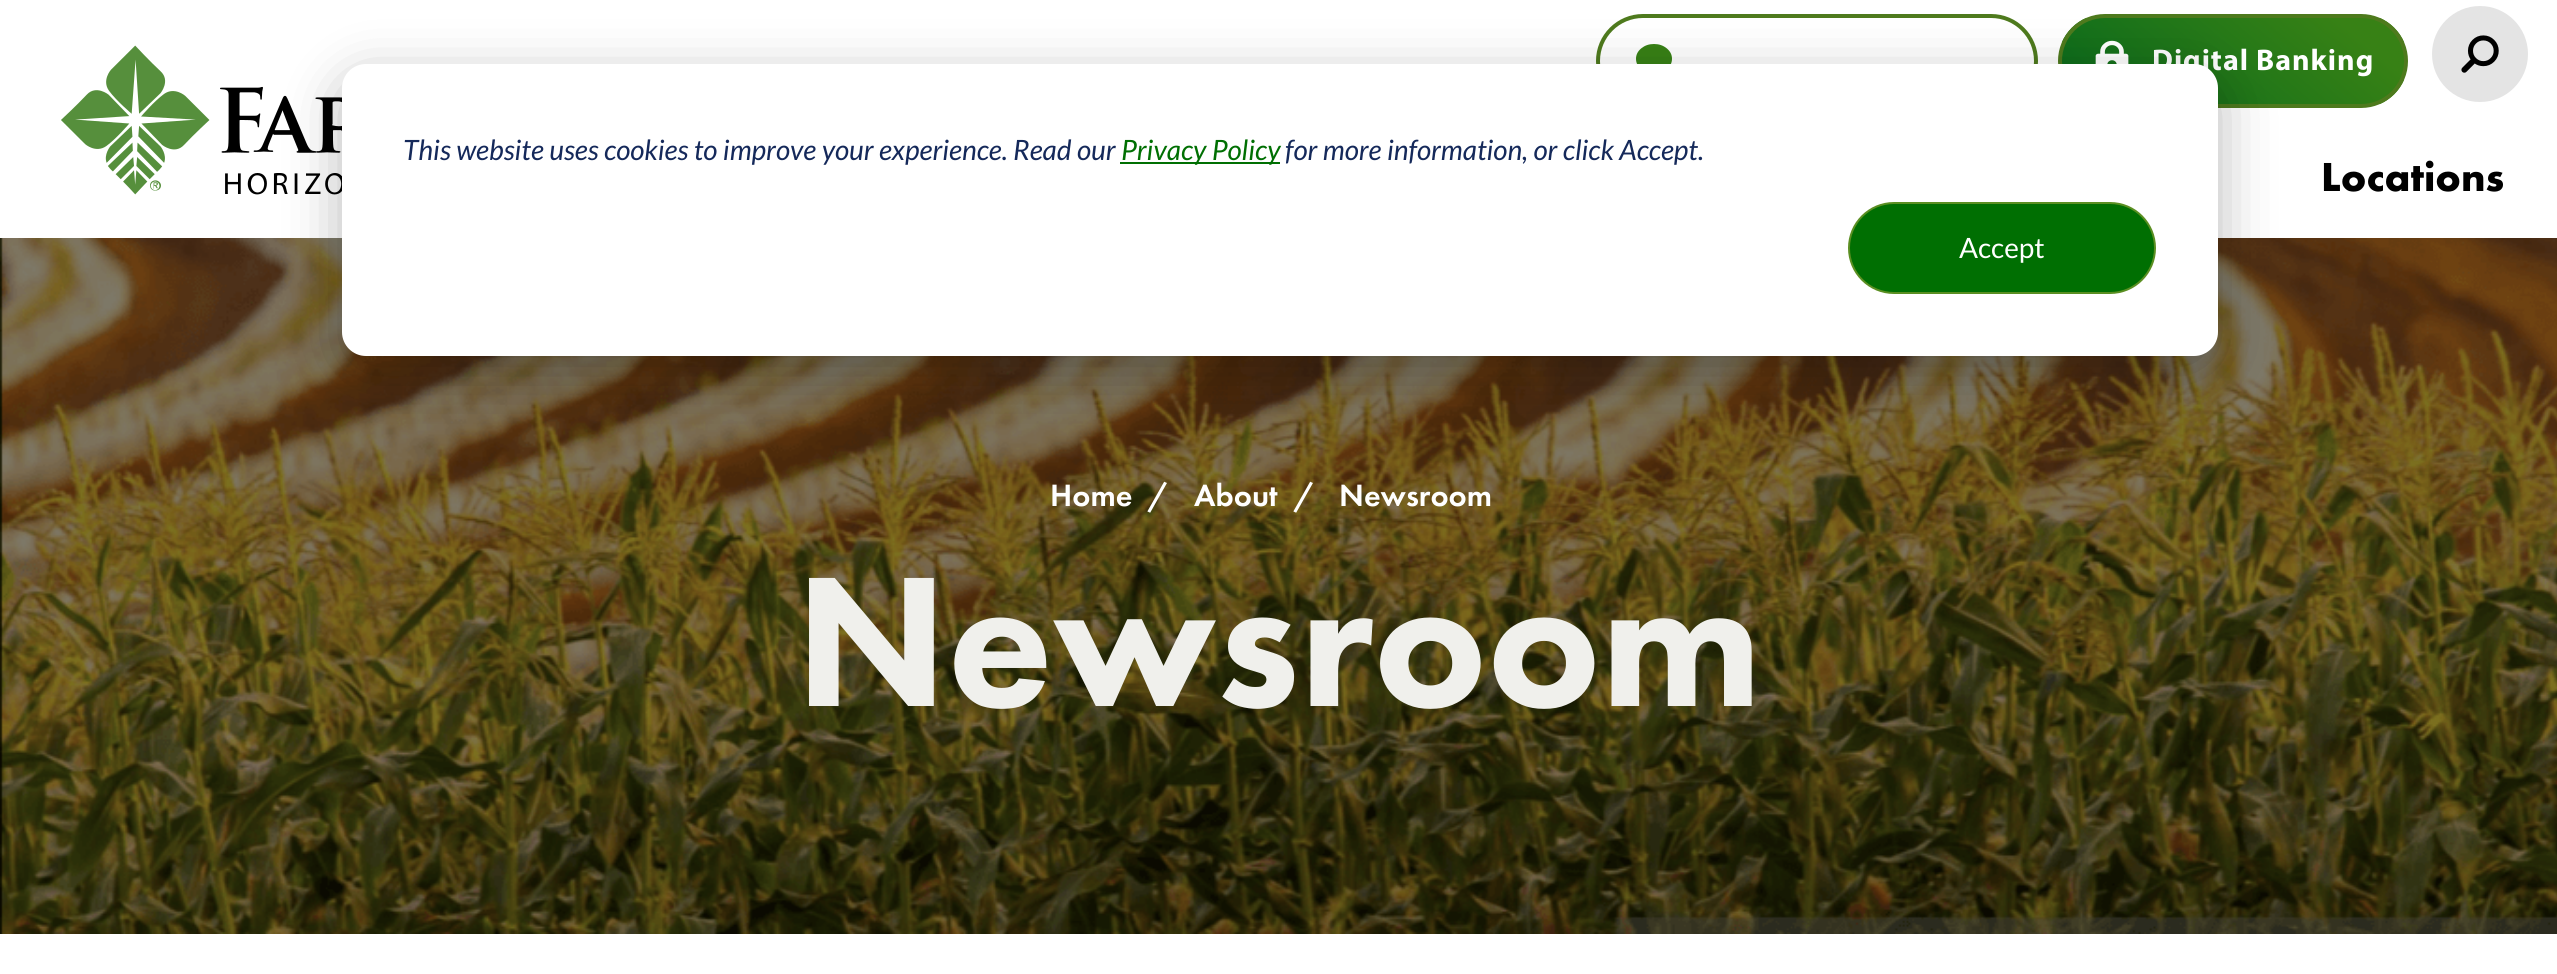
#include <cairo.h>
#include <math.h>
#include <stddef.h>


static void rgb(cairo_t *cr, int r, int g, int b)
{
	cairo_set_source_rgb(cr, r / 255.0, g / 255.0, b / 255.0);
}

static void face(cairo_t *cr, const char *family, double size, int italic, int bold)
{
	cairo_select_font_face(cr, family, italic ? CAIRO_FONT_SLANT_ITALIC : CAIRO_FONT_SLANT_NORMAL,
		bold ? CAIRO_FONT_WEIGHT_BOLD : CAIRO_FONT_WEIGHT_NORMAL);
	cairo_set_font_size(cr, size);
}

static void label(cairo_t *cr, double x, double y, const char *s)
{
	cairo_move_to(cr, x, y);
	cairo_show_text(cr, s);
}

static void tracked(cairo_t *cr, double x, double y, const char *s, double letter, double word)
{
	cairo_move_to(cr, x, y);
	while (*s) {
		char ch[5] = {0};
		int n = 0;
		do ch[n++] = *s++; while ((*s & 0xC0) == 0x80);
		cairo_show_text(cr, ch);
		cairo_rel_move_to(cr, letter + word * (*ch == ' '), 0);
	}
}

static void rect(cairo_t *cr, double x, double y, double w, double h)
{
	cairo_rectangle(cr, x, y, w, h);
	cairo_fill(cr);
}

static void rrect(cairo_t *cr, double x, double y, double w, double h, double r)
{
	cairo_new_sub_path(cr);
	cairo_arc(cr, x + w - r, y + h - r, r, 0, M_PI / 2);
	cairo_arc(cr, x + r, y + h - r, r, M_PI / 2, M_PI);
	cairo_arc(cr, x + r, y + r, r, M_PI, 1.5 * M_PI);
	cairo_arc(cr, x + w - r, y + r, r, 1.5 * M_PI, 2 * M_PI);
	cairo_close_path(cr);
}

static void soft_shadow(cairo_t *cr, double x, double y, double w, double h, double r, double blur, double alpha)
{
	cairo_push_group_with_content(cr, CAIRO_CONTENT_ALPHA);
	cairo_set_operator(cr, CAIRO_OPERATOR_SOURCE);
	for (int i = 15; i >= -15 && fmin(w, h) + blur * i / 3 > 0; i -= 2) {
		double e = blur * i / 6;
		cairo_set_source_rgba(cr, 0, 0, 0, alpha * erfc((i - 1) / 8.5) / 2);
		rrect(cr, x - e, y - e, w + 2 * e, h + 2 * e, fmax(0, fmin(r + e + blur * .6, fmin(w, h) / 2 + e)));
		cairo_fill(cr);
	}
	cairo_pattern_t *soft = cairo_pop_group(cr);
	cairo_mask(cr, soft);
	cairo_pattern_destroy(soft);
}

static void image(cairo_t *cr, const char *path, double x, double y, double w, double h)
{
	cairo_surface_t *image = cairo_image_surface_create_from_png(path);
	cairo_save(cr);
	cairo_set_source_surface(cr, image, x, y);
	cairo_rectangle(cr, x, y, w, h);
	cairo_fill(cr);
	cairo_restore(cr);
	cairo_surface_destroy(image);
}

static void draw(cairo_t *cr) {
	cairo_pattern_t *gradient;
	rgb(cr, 255, 255, 255);
	cairo_paint(cr);
	image(cr, "image0.png", 61, 45, 718, 150);
	image(cr, "image1.png", 1636, 44, 36, 20);
	rrect(cr, 1598, 16, 438, 90, 45);
	rgb(cr, 78, 122, 29);
	cairo_set_line_width(cr, 4);
	cairo_stroke(cr);
	cairo_save(cr);
	rrect(cr, 2058, 14, 350, 94, 47);
	cairo_clip(cr);
	gradient = cairo_pattern_create_linear(2141, 170, 2325, -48);
	cairo_pattern_add_color_stop_rgba(gradient, 0, 0.031, 0.416, 0.11, 1);
	cairo_pattern_add_color_stop_rgba(gradient, 0.85, 0.216, 0.506, 0.082, 1);
	cairo_set_source(cr, gradient);
	cairo_pattern_destroy(gradient);
	rect(cr, 2062, 18, 342, 86);
	cairo_restore(cr);
	rrect(cr, 2060, 16, 346, 90, 45);
	cairo_stroke(cr);
	image(cr, "image2.png", 2095, 40, 34, 24);
	face(cr, "Myriad", 30, 0, 1);
	rgb(cr, 255, 255, 255);
	tracked(cr, 2152, 70, "Digital Banking", 1, 0);
	rgb(cr, 228, 228, 228);
	cairo_new_path(cr);
	cairo_arc(cr, 2480, 54, 48, 0, 2 * M_PI);
	cairo_fill(cr);
	image(cr, "image3.png", 2461, 35, 38, 38);
	face(cr, "Futura PT", 42, 0, 1);
	rgb(cr, 0, 0, 0);
	label(cr, 2321, 191, "Locations");
	image(cr, "image4.png", 0, 238, 2557, 696);
	face(cr, "Futura PT Medium", 32, 0, 0);
	rgb(cr, 255, 255, 255);
	label(cr, 1050, 506, "Home");
	label(cr, 1148, 506, "/");
	label(cr, 1194, 506, "About");
	label(cr, 1294, 506, "/");
	label(cr, 1339, 506, "Newsroom");
	face(cr, "Futura PT Black", 192, 0, 0);
	rgb(cr, 240, 240, 236);
	label(cr, 795, 706, "Newsroom");
	rgb(cr, 0, 0, 0);
	soft_shadow(cr, 342, 80, 1876, 292, 24, 28, 0.28);
	rgb(cr, 255, 255, 255);
	rrect(cr, 342, 64, 1876, 292, 24);
	cairo_fill(cr);
	face(cr, "Lato", 28, 1, 0);
	rgb(cr, 21, 41, 90);
	label(cr, 403, 160, "This website uses cookies to improve your experience. Read our");
	rgb(cr, 0, 111, 2);
	rect(cr, 1120, 162, 160, 2);
	label(cr, 1121, 160, "Privacy Policy");
	rgb(cr, 21, 41, 90);
	label(cr, 1285, 160, "for more information, or click Accept.");
	rgb(cr, 0, 111, 2);
	rrect(cr, 1849, 203, 306, 90, 45);
	cairo_fill_preserve(cr);
	rgb(cr, 91, 143, 34);
	cairo_set_line_width(cr, 2);
	cairo_stroke(cr);
	face(cr, "Lato", 28, 0, 0);
	rgb(cr, 255, 255, 255);
	label(cr, 1959, 258, "Accept");
}

int main(void) {
	cairo_surface_t *surface = cairo_image_surface_create(CAIRO_FORMAT_RGB24, 2557, 974);
	cairo_t *cr = cairo_create(surface);
	cairo_font_options_t *options = cairo_font_options_create();
	cairo_font_options_set_hint_metrics(options, CAIRO_HINT_METRICS_OFF);
	cairo_font_options_set_hint_style(options, CAIRO_HINT_STYLE_NONE);
	cairo_set_font_options(cr, options);
	cairo_set_miter_limit(cr, 4);
	draw(cr);
	cairo_surface_write_to_png(surface, "render.png");
	cairo_font_options_destroy(options);
	cairo_destroy(cr);
	cairo_surface_destroy(surface);
	return 0;
}
